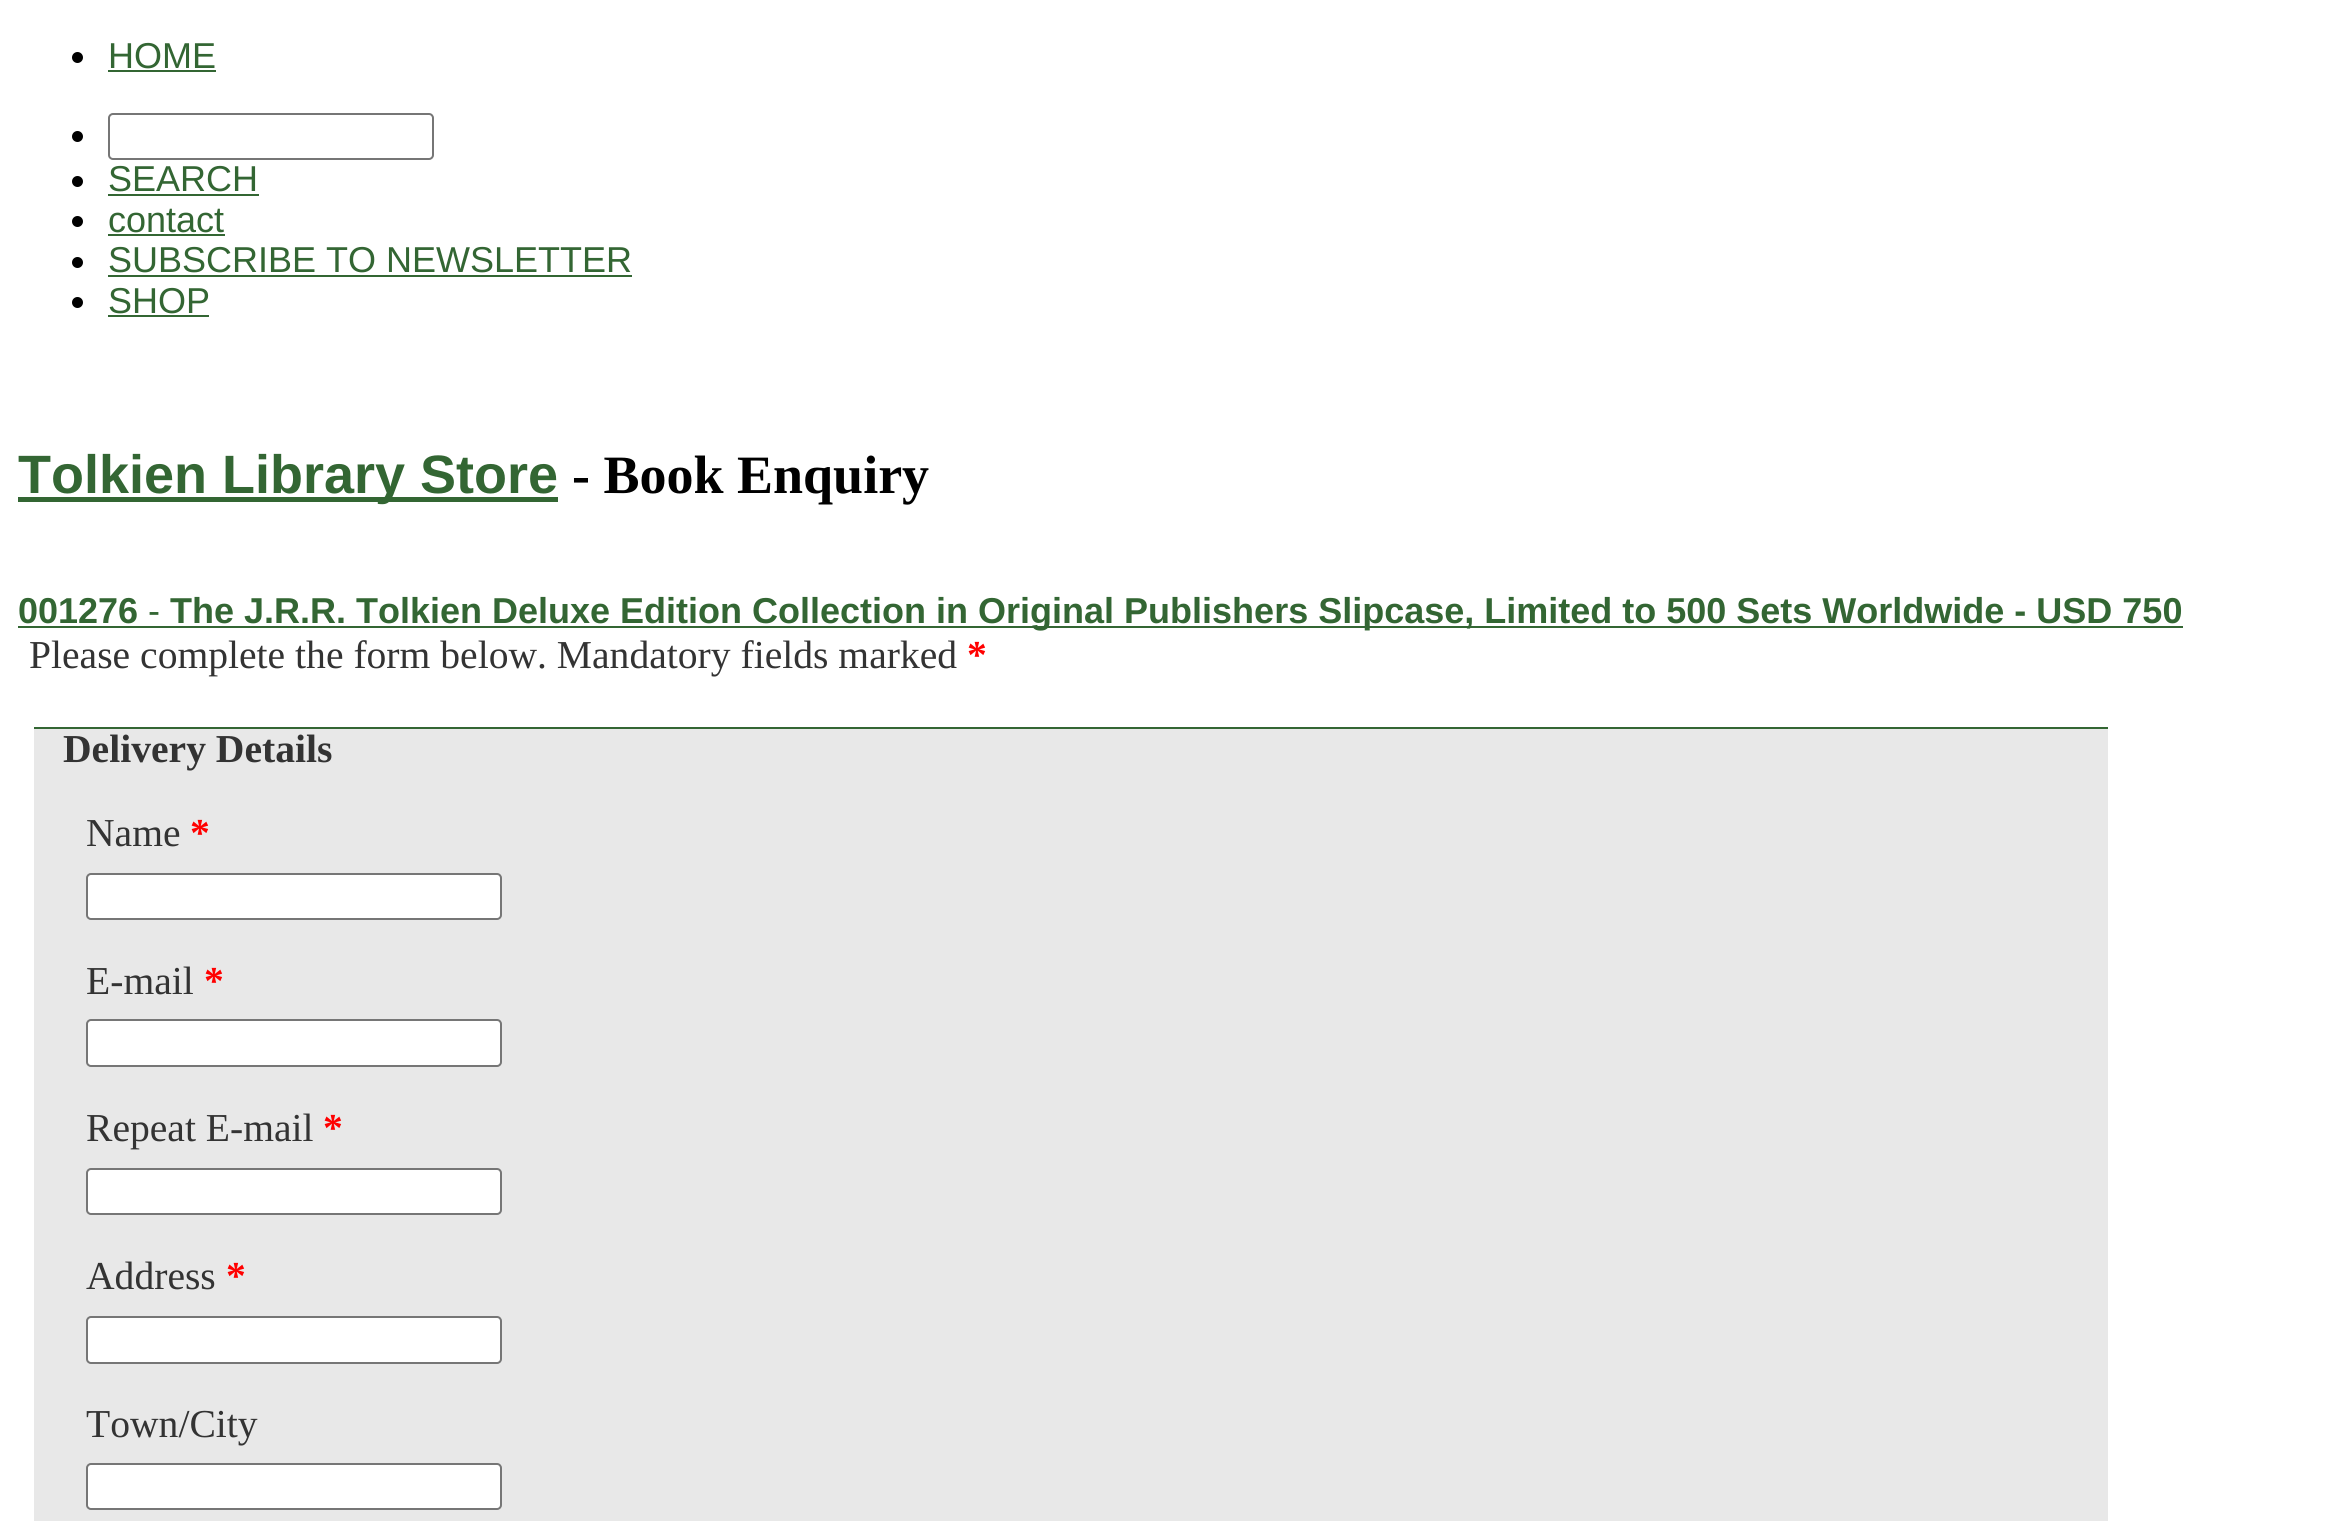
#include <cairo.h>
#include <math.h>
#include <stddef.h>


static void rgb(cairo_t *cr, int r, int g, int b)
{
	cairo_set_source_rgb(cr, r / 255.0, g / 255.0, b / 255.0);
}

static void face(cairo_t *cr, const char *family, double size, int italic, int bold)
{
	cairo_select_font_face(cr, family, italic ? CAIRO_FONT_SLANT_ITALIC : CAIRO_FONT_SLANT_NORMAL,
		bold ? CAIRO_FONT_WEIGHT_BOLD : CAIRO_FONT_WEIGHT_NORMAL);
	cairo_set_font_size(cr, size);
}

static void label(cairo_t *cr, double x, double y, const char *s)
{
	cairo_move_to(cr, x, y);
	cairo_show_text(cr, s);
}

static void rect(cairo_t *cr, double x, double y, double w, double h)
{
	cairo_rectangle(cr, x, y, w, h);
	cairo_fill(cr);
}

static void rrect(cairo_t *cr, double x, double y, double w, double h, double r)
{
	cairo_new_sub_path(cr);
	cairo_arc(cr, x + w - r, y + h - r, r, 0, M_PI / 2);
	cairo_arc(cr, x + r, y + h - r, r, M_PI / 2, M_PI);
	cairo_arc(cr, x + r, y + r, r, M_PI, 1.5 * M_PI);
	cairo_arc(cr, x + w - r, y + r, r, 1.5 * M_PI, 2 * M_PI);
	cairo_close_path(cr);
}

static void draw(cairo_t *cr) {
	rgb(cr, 255, 255, 255);
	cairo_paint(cr);
	rgb(cr, 0, 0, 0);
	cairo_arc(cr, 77.5, 57.5, 5.5, 0, 2 * M_PI);
	cairo_fill(cr);
	face(cr, "Liberation Sans", 36, 0, 0);
	rgb(cr, 51, 102, 51);
	label(cr, 108, 68, "HOME");
	rect(cr, 108, 70, 108, 2);
	rgb(cr, 0, 0, 0);
	cairo_new_path(cr);
	cairo_arc(cr, 77.5, 136.5, 5.5, 0, 2 * M_PI);
	cairo_fill(cr);
	rrect(cr, 109, 114, 324, 45, 4);
	rgb(cr, 118, 118, 118);
	cairo_stroke(cr);
	rgb(cr, 0, 0, 0);
	cairo_arc(cr, 77.5, 181.5, 5.5, 0, 2 * M_PI);
	cairo_fill(cr);
	rgb(cr, 51, 102, 51);
	label(cr, 108, 191, "SEARCH");
	rect(cr, 108, 194, 151, 2);
	rgb(cr, 0, 0, 0);
	cairo_new_path(cr);
	cairo_arc(cr, 77.5, 221.5, 5.5, 0, 2 * M_PI);
	cairo_fill(cr);
	rgb(cr, 51, 102, 51);
	label(cr, 108, 232, "contact");
	rect(cr, 108, 234, 117, 2);
	rgb(cr, 0, 0, 0);
	cairo_new_path(cr);
	cairo_arc(cr, 77.5, 262.5, 5.5, 0, 2 * M_PI);
	cairo_fill(cr);
	rgb(cr, 51, 102, 51);
	label(cr, 108, 272, "SUBSCRIBE TO NEWSLETTER");
	rect(cr, 108, 275, 524, 2);
	rgb(cr, 0, 0, 0);
	cairo_new_path(cr);
	cairo_arc(cr, 77.5, 302.5, 5.5, 0, 2 * M_PI);
	cairo_fill(cr);
	rgb(cr, 51, 102, 51);
	label(cr, 108, 313, "SHOP");
	rect(cr, 108, 315, 101, 2);
	rect(cr, 18, 497, 540, 5);
	face(cr, "Liberation Sans", 54, 0, 1);
	label(cr, 18, 493, "Tolkien Library Store");
	face(cr, "Liberation Serif", 54, 0, 1);
	rgb(cr, 0, 0, 0);
	label(cr, 572, 493, "- Book Enquiry");
	face(cr, "Liberation Sans", 36, 0, 1);
	rgb(cr, 51, 102, 51);
	label(cr, 18, 623, "001276");
	face(cr, "Liberation Sans", 36, 0, 0);
	label(cr, 148, 623, "-");
	rect(cr, 18, 626, 2165, 2);
	face(cr, "Liberation Sans", 36, 0, 1);
	label(cr, 170, 623, "The J.R.R. Tolkien Deluxe Edition Collection in Original Publishers Slipcase, Limited to 500 Sets Worldwide - USD 750");
	face(cr, "Liberation Serif", 39.6, 0, 0);
	rgb(cr, 51, 51, 51);
	label(cr, 29, 668, "Please complete the form below. Mandatory fields marked");
	face(cr, "Liberation Serif", 39.6, 0, 1);
	rgb(cr, 255, 0, 0);
	label(cr, 967, 668, "*");
	rgb(cr, 232, 232, 232);
	rect(cr, 34, 729, 2074, 792);
	rgb(cr, 51, 102, 51);
	rect(cr, 34, 727, 2074, 2);
	rgb(cr, 51, 51, 51);
	label(cr, 63, 762, "Delivery Details");
	face(cr, "Liberation Serif", 39.6, 0, 0);
	label(cr, 86, 846, "Name");
	face(cr, "Liberation Serif", 39.6, 0, 1);
	rgb(cr, 255, 0, 0);
	label(cr, 190, 846, "*");
	rgb(cr, 255, 255, 255);
	rrect(cr, 87, 874, 414, 45, 4);
	cairo_fill_preserve(cr);
	rgb(cr, 118, 118, 118);
	cairo_stroke(cr);
	face(cr, "Liberation Serif", 39.6, 0, 0);
	rgb(cr, 51, 51, 51);
	label(cr, 86, 994, "E-mail");
	face(cr, "Liberation Serif", 39.6, 0, 1);
	rgb(cr, 255, 0, 0);
	label(cr, 204, 994, "*");
	rgb(cr, 255, 255, 255);
	rrect(cr, 87, 1020, 414, 46, 4);
	cairo_fill_preserve(cr);
	rgb(cr, 118, 118, 118);
	cairo_stroke(cr);
	face(cr, "Liberation Serif", 39.6, 0, 0);
	rgb(cr, 51, 51, 51);
	label(cr, 86, 1141, "Repeat E-mail");
	face(cr, "Liberation Serif", 39.6, 0, 1);
	rgb(cr, 255, 0, 0);
	label(cr, 323, 1141, "*");
	rgb(cr, 255, 255, 255);
	rrect(cr, 87, 1169, 414, 45, 4);
	cairo_fill_preserve(cr);
	rgb(cr, 118, 118, 118);
	cairo_stroke(cr);
	face(cr, "Liberation Serif", 39.6, 0, 0);
	rgb(cr, 51, 51, 51);
	label(cr, 86, 1289, "Address");
	face(cr, "Liberation Serif", 39.6, 0, 1);
	rgb(cr, 255, 0, 0);
	label(cr, 226, 1289, "*");
	rgb(cr, 255, 255, 255);
	rrect(cr, 87, 1317, 414, 46, 4);
	cairo_fill_preserve(cr);
	rgb(cr, 118, 118, 118);
	cairo_stroke(cr);
	face(cr, "Liberation Serif", 39.6, 0, 0);
	rgb(cr, 51, 51, 51);
	label(cr, 86, 1437, "Town/City");
	rgb(cr, 255, 255, 255);
	rrect(cr, 87, 1464, 414, 45, 4);
	cairo_fill_preserve(cr);
	rgb(cr, 118, 118, 118);
	cairo_stroke(cr);
}

int main(void) {
	cairo_surface_t *surface = cairo_image_surface_create(CAIRO_FORMAT_RGB24, 2351, 1521);
	cairo_t *cr = cairo_create(surface);
	cairo_font_options_t *options = cairo_font_options_create();
	cairo_font_options_set_hint_metrics(options, CAIRO_HINT_METRICS_OFF);
	cairo_font_options_set_hint_style(options, CAIRO_HINT_STYLE_NONE);
	cairo_set_font_options(cr, options);
	cairo_set_miter_limit(cr, 4);
	draw(cr);
	cairo_surface_write_to_png(surface, "render.png");
	cairo_font_options_destroy(options);
	cairo_destroy(cr);
	cairo_surface_destroy(surface);
	return 0;
}
